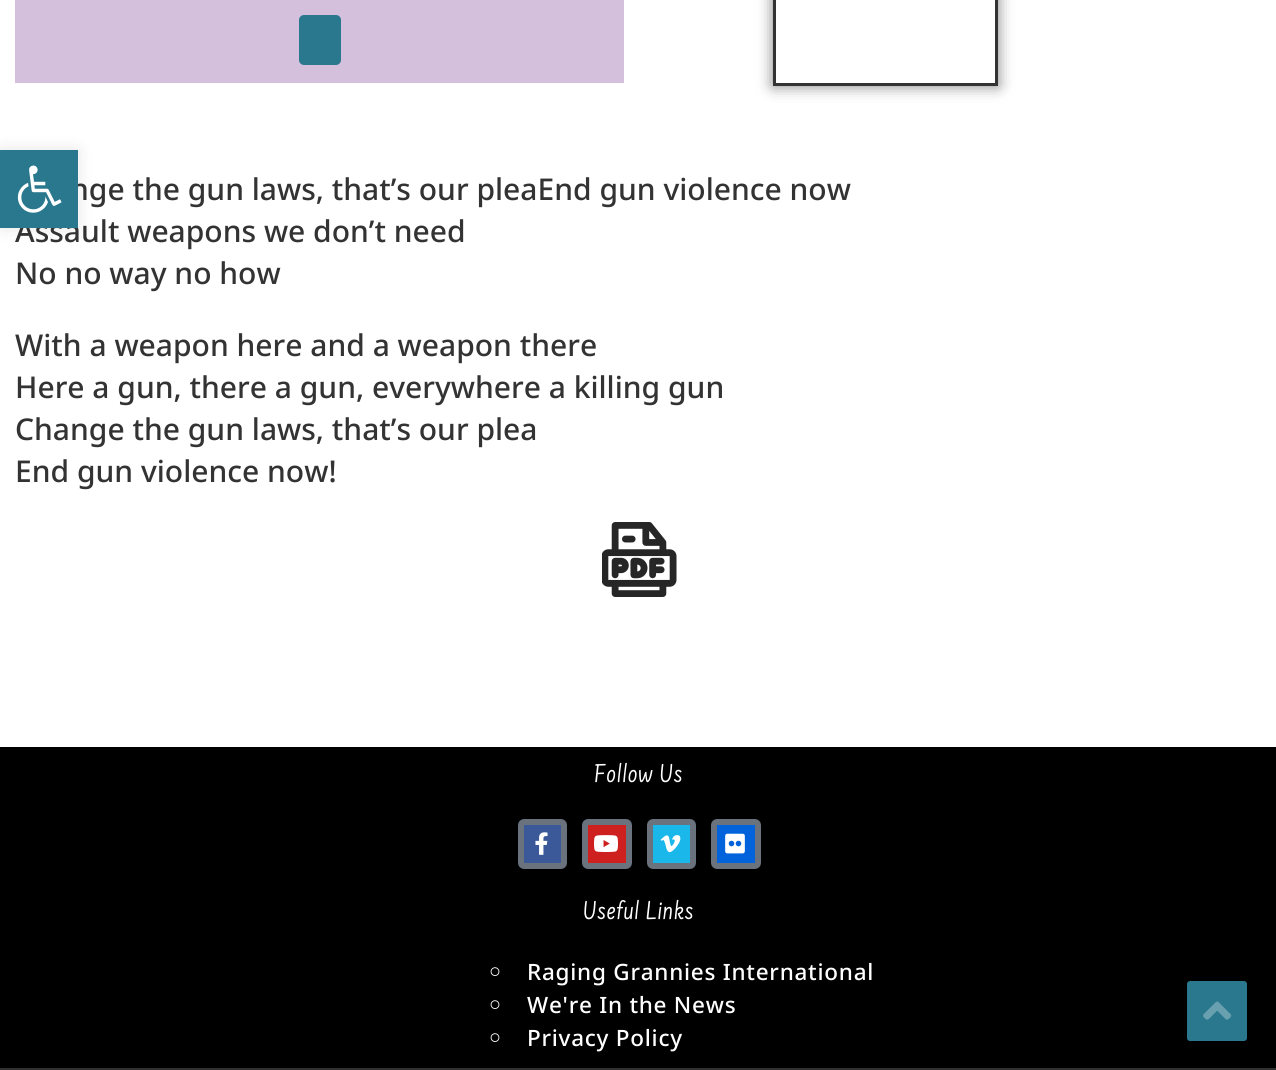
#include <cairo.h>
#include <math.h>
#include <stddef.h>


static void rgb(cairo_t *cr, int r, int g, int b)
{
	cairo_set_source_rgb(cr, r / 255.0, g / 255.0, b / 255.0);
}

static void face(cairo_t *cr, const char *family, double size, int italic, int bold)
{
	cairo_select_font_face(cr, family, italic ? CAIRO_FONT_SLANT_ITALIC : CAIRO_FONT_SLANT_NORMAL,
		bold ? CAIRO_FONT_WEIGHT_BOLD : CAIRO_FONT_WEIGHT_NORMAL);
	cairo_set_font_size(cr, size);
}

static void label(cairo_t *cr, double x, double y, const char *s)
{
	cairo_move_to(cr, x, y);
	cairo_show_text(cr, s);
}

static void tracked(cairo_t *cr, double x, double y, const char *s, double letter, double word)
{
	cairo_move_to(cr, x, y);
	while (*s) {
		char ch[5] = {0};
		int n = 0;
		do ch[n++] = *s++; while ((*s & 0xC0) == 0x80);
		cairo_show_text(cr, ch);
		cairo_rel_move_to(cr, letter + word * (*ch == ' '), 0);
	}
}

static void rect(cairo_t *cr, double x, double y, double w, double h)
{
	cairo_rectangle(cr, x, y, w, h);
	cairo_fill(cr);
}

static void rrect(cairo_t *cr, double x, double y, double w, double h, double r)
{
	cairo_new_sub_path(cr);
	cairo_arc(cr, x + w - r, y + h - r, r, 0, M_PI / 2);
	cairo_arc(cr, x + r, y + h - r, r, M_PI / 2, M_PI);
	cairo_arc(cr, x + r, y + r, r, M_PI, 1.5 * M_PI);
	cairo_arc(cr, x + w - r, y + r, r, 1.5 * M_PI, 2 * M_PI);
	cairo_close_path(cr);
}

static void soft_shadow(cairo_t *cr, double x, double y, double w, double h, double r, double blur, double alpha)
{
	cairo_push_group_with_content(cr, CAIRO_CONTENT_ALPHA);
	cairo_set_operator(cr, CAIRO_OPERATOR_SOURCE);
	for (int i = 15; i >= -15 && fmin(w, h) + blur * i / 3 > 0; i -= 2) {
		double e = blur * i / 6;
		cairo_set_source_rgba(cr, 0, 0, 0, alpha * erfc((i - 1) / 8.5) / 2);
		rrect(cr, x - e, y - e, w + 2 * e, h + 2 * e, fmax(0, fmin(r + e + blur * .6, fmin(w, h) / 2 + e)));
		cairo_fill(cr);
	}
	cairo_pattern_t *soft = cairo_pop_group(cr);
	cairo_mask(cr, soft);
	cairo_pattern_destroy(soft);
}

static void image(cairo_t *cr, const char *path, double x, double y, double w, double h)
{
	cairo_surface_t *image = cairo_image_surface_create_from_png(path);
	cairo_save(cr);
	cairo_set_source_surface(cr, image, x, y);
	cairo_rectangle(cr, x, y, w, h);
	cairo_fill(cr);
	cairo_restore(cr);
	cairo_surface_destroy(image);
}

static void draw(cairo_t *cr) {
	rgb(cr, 255, 255, 255);
	cairo_paint(cr);
	rgb(cr, 0, 0, 0);
	soft_shadow(cr, 0, 150, 78, 78, 0, 7.5, 0.1);
	face(cr, "Noto Sans Medium", 30, 0, 0);
	rgb(cr, 51, 51, 51);
	label(cr, 70, 200, "nge the gun laws, that’s our pleaEnd gun violence now");
	label(cr, 15, 242, "Assault weapons we don’t need");
	rgb(cr, 42, 120, 142);
	rect(cr, 0, 150, 78, 78);
	image(cr, "image0.png", 17, 165, 45, 48);
	rgb(cr, 212, 192, 221);
	rect(cr, 15, 0, 609, 83);
	rgb(cr, 42, 120, 142);
	rrect(cr, 299, 15, 42, 50, 5);
	cairo_fill(cr);
	cairo_save(cr);
	cairo_set_fill_rule(cr, CAIRO_FILL_RULE_EVEN_ODD);
	cairo_new_path(cr);
	cairo_move_to(cr, 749, 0);
	cairo_line_to(cr, 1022, 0);
	cairo_line_to(cr, 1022, 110);
	cairo_line_to(cr, 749, 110);
	cairo_close_path(cr);
	cairo_move_to(cr, 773, -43);
	cairo_line_to(cr, 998, -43);
	cairo_line_to(cr, 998, 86);
	cairo_line_to(cr, 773, 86);
	cairo_close_path(cr);
	cairo_clip(cr);
	rgb(cr, 0, 0, 0);
	soft_shadow(cr, 773, -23, 225, 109, 0, 7.5, 0.5);
	cairo_restore(cr);
	cairo_rectangle(cr, 774.5, -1.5, 222, 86);
	rgb(cr, 51, 51, 51);
	cairo_set_line_width(cr, 3);
	cairo_stroke(cr);
	label(cr, 15, 284, "No no way no how");
	label(cr, 15, 356, "With a weapon here and a weapon there");
	label(cr, 15, 398, "Here a gun, there a gun, everywhere a killing gun");
	label(cr, 15, 440, "Change the gun laws, that’s our plea");
	label(cr, 15, 482, "End gun violence now!");
	image(cr, "image1.png", 602, 522, 75, 75);
	rgb(cr, 0, 0, 0);
	rect(cr, 0, 747, 1276, 321);
	face(cr, "Farsan", 27, 0, 0);
	rgb(cr, 255, 255, 255);
	tracked(cr, 594, 782, "Follow Us", 0.75, 0);
	rgb(cr, 59, 89, 152);
	rrect(cr, 521, 822, 43, 44, 3);
	cairo_fill_preserve(cr);
	rgb(cr, 105, 114, 125);
	cairo_set_line_width(cr, 6);
	cairo_stroke(cr);
	image(cr, "image2.png", 535, 832, 13, 23);
	rgb(cr, 205, 32, 31);
	rrect(cr, 585, 822, 44, 44, 3);
	cairo_fill_preserve(cr);
	rgb(cr, 105, 114, 125);
	cairo_stroke(cr);
	image(cr, "image3.png", 594, 835, 24, 17);
	rgb(cr, 26, 183, 234);
	rrect(cr, 650, 822, 43, 44, 3);
	cairo_fill_preserve(cr);
	rgb(cr, 105, 114, 125);
	cairo_stroke(cr);
	image(cr, "image4.png", 660, 835, 21, 18);
	rgb(cr, 0, 99, 220);
	rrect(cr, 714, 822, 44, 44, 3);
	cairo_fill_preserve(cr);
	rgb(cr, 105, 114, 125);
	cairo_stroke(cr);
	image(cr, "image5.png", 725, 833, 20, 21);
	rgb(cr, 255, 255, 255);
	tracked(cr, 583, 919, "Useful Links", 0.75, 0);
	image(cr, "image6.png", 490, 967, 10, 9);
	face(cr, "Noto Sans Medium", 22.5, 0, 0);
	tracked(cr, 527, 980, "Raging Grannies International", 0.75, 0);
	image(cr, "image6.png", 490, 1000, 10, 9);
	tracked(cr, 527, 1013, "We're In the News", 0.75, 0);
	image(cr, "image6.png", 490, 1033, 10, 9);
	tracked(cr, 527, 1046, "Privacy Policy", 0.75, 0);
	rgb(cr, 48, 48, 48);
	rect(cr, 0, 1068, 1276, 2);
	rgb(cr, 42, 120, 142);
	rrect(cr, 1187, 981, 60, 60, 3);
	cairo_fill(cr);
	image(cr, "image7.png", 1203, 1001, 29, 19);
}

int main(void) {
	cairo_surface_t *surface = cairo_image_surface_create(CAIRO_FORMAT_RGB24, 1276, 1070);
	cairo_t *cr = cairo_create(surface);
	cairo_font_options_t *options = cairo_font_options_create();
	cairo_font_options_set_hint_metrics(options, CAIRO_HINT_METRICS_OFF);
	cairo_font_options_set_hint_style(options, CAIRO_HINT_STYLE_NONE);
	cairo_set_font_options(cr, options);
	cairo_set_miter_limit(cr, 4);
	draw(cr);
	cairo_surface_write_to_png(surface, "render.png");
	cairo_font_options_destroy(options);
	cairo_destroy(cr);
	cairo_surface_destroy(surface);
	return 0;
}
